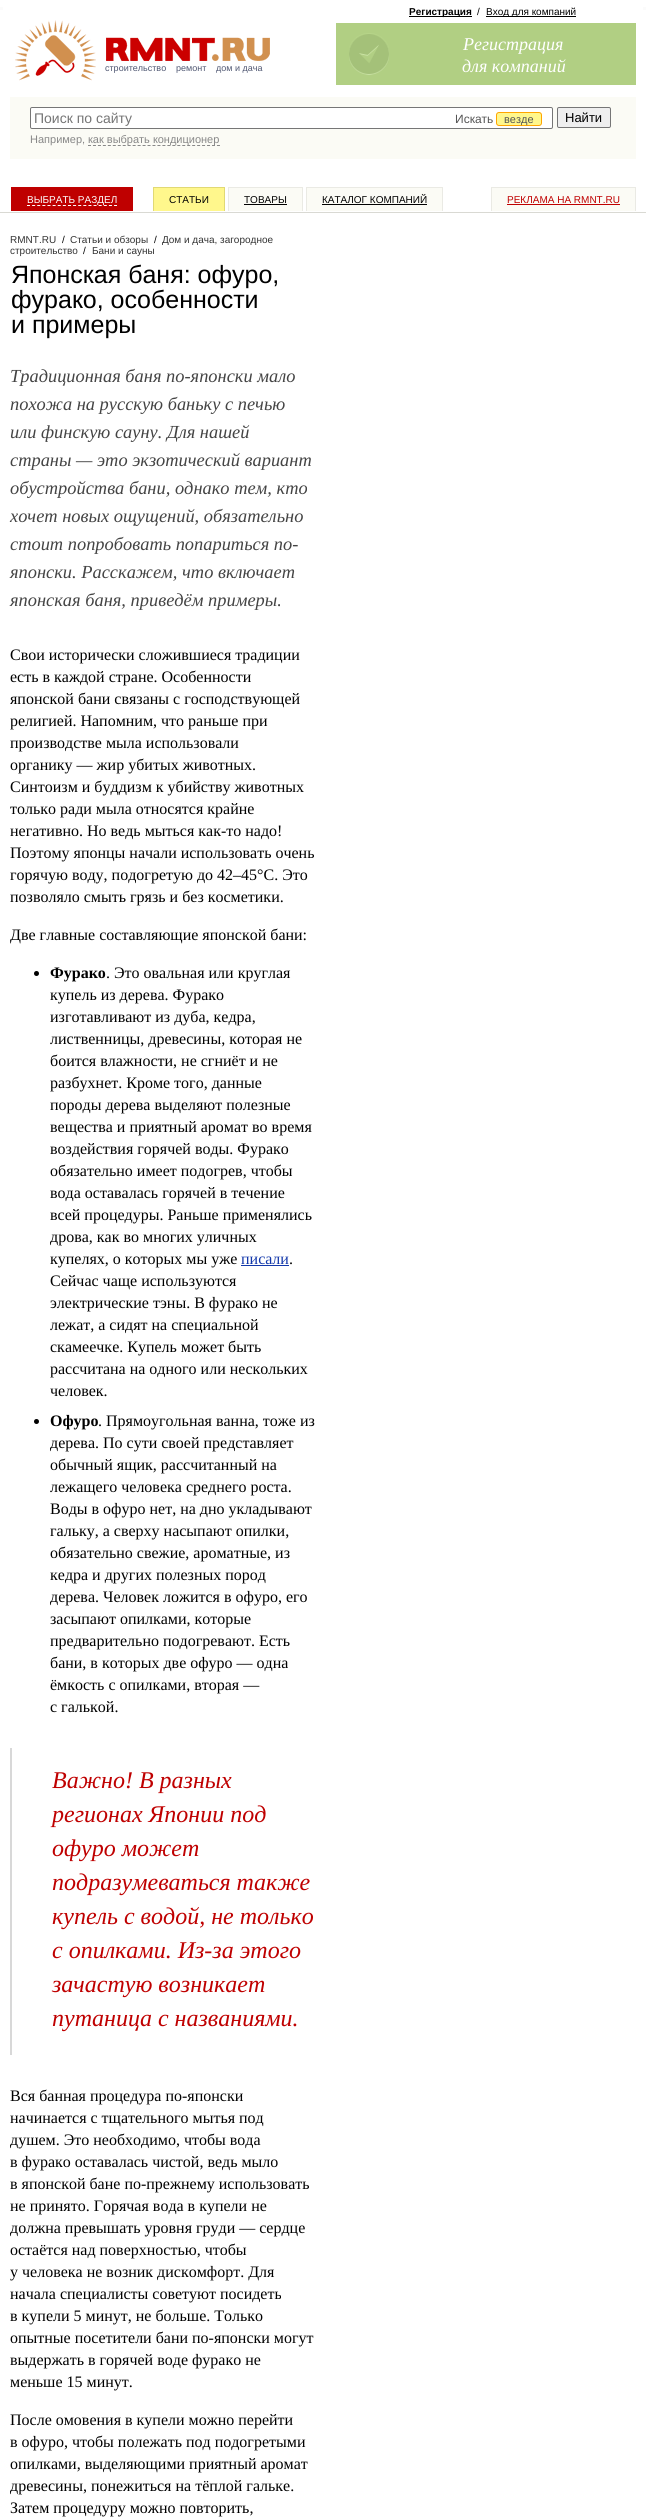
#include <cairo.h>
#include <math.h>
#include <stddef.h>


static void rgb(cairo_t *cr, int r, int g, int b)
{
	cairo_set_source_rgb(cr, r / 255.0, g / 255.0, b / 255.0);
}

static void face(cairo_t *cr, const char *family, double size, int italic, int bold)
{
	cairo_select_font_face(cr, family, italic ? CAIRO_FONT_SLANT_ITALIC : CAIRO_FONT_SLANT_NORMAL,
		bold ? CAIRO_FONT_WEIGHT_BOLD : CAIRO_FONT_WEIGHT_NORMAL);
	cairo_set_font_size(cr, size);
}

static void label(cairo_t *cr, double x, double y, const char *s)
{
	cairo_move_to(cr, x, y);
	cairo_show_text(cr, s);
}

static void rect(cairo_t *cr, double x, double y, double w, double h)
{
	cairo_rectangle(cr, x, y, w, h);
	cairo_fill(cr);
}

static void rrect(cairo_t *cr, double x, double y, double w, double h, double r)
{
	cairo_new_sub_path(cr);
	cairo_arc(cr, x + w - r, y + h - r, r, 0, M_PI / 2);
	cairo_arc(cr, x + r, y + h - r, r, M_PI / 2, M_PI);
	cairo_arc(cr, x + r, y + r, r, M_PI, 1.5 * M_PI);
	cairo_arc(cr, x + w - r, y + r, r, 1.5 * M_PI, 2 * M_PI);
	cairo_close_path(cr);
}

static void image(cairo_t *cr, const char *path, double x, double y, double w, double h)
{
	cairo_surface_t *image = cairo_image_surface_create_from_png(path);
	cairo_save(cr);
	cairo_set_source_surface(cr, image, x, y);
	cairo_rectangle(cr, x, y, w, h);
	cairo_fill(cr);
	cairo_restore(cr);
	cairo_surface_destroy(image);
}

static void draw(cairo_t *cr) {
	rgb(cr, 255, 255, 255);
	cairo_paint(cr);
	rgb(cr, 251, 251, 251);
	rect(cr, 0, 7, 3, 3);
	image(cr, "image0.png", 15, 20, 255, 61);
	face(cr, "Liberation Sans", 9, 0, 0);
	rgb(cr, 79, 87, 114);
	label(cr, 105, 71, "строительство");
	label(cr, 176, 71, "ремонт");
	label(cr, 216, 71, "дом и дача");
	rgb(cr, 0, 0, 0);
	rect(cr, 409, 16, 63, 1);
	face(cr, "Liberation Sans", 10, 0, 1);
	label(cr, 409, 15, "Регистрация");
	face(cr, "Liberation Sans", 10, 0, 0);
	label(cr, 477, 15, "/");
	rect(cr, 486, 16, 90, 1);
	label(cr, 486, 15, "Вход для компаний");
	rgb(cr, 177, 207, 131);
	rect(cr, 336, 23, 300, 62);
	image(cr, "image1.png", 349, 33, 40, 42);
	face(cr, "Liberation Serif", 18, 1, 0);
	rgb(cr, 255, 255, 255);
	label(cr, 463, 50, "Регистрация");
	label(cr, 462, 72, "для компаний");
	rgb(cr, 251, 251, 245);
	rect(cr, 10, 97, 626, 62);
	rgb(cr, 255, 255, 255);
	rrect(cr, 30.5, 107.5, 522, 21, 1.5);
	cairo_fill_preserve(cr);
	rgb(cr, 118, 118, 118);
	cairo_set_line_width(cr, 1);
	cairo_stroke(cr);
	face(cr, "Liberation Sans", 14, 0, 0);
	rgb(cr, 117, 117, 117);
	label(cr, 34, 123, "Поиск по сайту");
	face(cr, "Liberation Sans", 12, 0, 0);
	rgb(cr, 85, 85, 85);
	label(cr, 455, 123, "Искать");
	rgb(cr, 255, 247, 140);
	rrect(cr, 496.5, 112.5, 45, 13, 2.5);
	cairo_fill_preserve(cr);
	rgb(cr, 255, 165, 0);
	cairo_stroke(cr);
	face(cr, "Liberation Sans", 11, 0, 0);
	rgb(cr, 85, 85, 85);
	label(cr, 504, 123, "везде");
	rgb(cr, 239, 239, 239);
	rrect(cr, 557.5, 107.5, 53, 20, 1.5);
	cairo_fill_preserve(cr);
	rgb(cr, 118, 118, 118);
	cairo_stroke(cr);
	face(cr, "Liberation Sans", 13, 0, 0);
	rgb(cr, 0, 0, 0);
	label(cr, 565, 122, "Найти");
	face(cr, "Liberation Sans", 11, 0, 0);
	rgb(cr, 136, 136, 136);
	label(cr, 30, 143, "Например,");
	cairo_new_path(cr);
	cairo_move_to(cr, 88, 145.5);
	cairo_line_to(cr, 220, 145.5);
	cairo_set_dash(cr, (double[]){3, 1.96}, 2, 0);
	cairo_stroke(cr);
	label(cr, 88, 143, "как выбрать кондиционер");
	rgb(cr, 217, 217, 211);
	rect(cr, 0, 212, 646, 1);
	rgb(cr, 191, 0, 0);
	rect(cr, 11, 187, 122, 24);
	cairo_new_path(cr);
	cairo_move_to(cr, 27, 205.5);
	cairo_line_to(cr, 117, 205.5);
	rgb(cr, 255, 255, 255);
	cairo_set_dash(cr, (double[]){3, 2.12}, 2, 0);
	cairo_stroke(cr);
	face(cr, "Liberation Sans", 10, 0, 0);
	label(cr, 27, 203, "ВЫБРАТЬ РАЗДЕЛ");
	rgb(cr, 255, 247, 140);
	rect(cr, 154, 188, 70, 23);
	rgb(cr, 225, 217, 116);
	rect(cr, 153, 187, 72, 1);
	rect(cr, 224, 187, 1, 24);
	rect(cr, 153, 187, 1, 24);
	rgb(cr, 0, 0, 0);
	label(cr, 169, 203, "СТАТЬИ");
	rgb(cr, 251, 251, 245);
	rect(cr, 229, 188, 73, 23);
	rgb(cr, 234, 234, 228);
	rect(cr, 228, 187, 75, 1);
	rect(cr, 302, 187, 1, 24);
	rect(cr, 228, 187, 1, 24);
	rgb(cr, 0, 0, 0);
	label(cr, 244, 203, "ТОВАРЫ");
	rect(cr, 244, 204, 43, 1);
	rgb(cr, 251, 251, 245);
	rect(cr, 307, 188, 135, 23);
	rgb(cr, 234, 234, 228);
	rect(cr, 306, 187, 137, 1);
	rect(cr, 442, 187, 1, 24);
	rect(cr, 306, 187, 1, 24);
	rgb(cr, 0, 0, 0);
	label(cr, 322, 203, "КАТАЛОГ КОМПАНИЙ");
	rect(cr, 322, 204, 105, 1);
	rgb(cr, 251, 251, 245);
	rect(cr, 492, 188, 143, 23);
	rgb(cr, 234, 234, 228);
	rect(cr, 491, 187, 145, 1);
	rect(cr, 635, 187, 1, 24);
	rect(cr, 491, 187, 1, 24);
	rgb(cr, 191, 0, 0);
	label(cr, 507, 203, "РЕКЛАМА НА RMNT.RU");
	rect(cr, 507, 204, 113, 1);
	rgb(cr, 51, 51, 51);
	label(cr, 10, 243, "RMNT.RU");
	rgb(cr, 0, 0, 0);
	label(cr, 62, 243, "/");
	rgb(cr, 51, 51, 51);
	label(cr, 70, 243, "Статьи и обзоры");
	rgb(cr, 0, 0, 0);
	label(cr, 154, 243, "/");
	rgb(cr, 51, 51, 51);
	label(cr, 162, 243, "Дом и дача, загородное");
	label(cr, 10, 254, "строительство");
	rgb(cr, 0, 0, 0);
	label(cr, 83, 254, "/");
	rgb(cr, 51, 51, 51);
	label(cr, 92, 254, "Бани и сауны");
	face(cr, "Liberation Sans", 25, 0, 0);
	rgb(cr, 0, 0, 0);
	label(cr, 11, 283, "Японская баня: офуро,");
	label(cr, 11, 308, "фурако, особенности");
	label(cr, 11, 333, "и примеры");
	face(cr, "Liberation Serif", 18.4, 1, 0);
	rgb(cr, 68, 68, 68);
	label(cr, 10, 382, "Традиционная баня по-японски мало");
	label(cr, 10, 410, "похожа на русскую баньку с печью");
	label(cr, 10, 438, "или финскую сауну. Для нашей");
	label(cr, 10, 466, "страны — это экзотический вариант");
	label(cr, 10, 494, "обустройства бани, однако тем, кто");
	label(cr, 10, 522, "хочет новых ощущений, обязательно");
	label(cr, 10, 550, "стоит попробовать попариться по-");
	label(cr, 10, 578, "японски. Расскажем, что включает");
	label(cr, 10, 606, "японская баня, приведём примеры.");
	face(cr, "Liberation Serif", 16, 0, 0);
	rgb(cr, 0, 0, 0);
	label(cr, 10, 660, "Свои исторически сложившиеся традиции");
	label(cr, 10, 682, "есть в каждой стране. Особенности");
	label(cr, 10, 704, "японской бани связаны с господствующей");
	label(cr, 10, 726, "религией. Напомним, что раньше при");
	label(cr, 10, 748, "производстве мыла использовали");
	label(cr, 10, 770, "органику — жир убитых животных.");
	label(cr, 10, 792, "Синтоизм и буддизм к убийству животных");
	label(cr, 10, 814, "только ради мыла относятся крайне");
	label(cr, 10, 836, "негативно. Но ведь мыться как-то надо!");
	label(cr, 10, 858, "Поэтому японцы начали использовать очень");
	label(cr, 10, 880, "горячую воду, подогретую до 42–45°C. Это");
	label(cr, 10, 902, "позволяло смыть грязь и без косметики.");
	label(cr, 10, 940, "Две главные составляющие японской бани:");
	cairo_new_path(cr);
	cairo_arc(cr, 36.5, 973.5, 2.5, 0, 2 * M_PI);
	cairo_fill(cr);
	face(cr, "Liberation Serif", 16, 0, 1);
	label(cr, 50, 978, "Фурако");
	face(cr, "Liberation Serif", 16, 0, 0);
	label(cr, 106, 978, ". Это овальная или круглая");
	label(cr, 50, 1000, "купель из дерева. Фурако");
	label(cr, 50, 1022, "изготавливают из дуба, кедра,");
	label(cr, 50, 1044, "лиственницы, древесины, которая не");
	label(cr, 50, 1066, "боится влажности, не сгниёт и не");
	label(cr, 50, 1088, "разбухнет. Кроме того, данные");
	label(cr, 50, 1110, "породы дерева выделяют полезные");
	label(cr, 50, 1132, "вещества и приятный аромат во время");
	label(cr, 50, 1154, "воздействия горячей воды. Фурако");
	label(cr, 50, 1176, "обязательно имеет подогрев, чтобы");
	label(cr, 50, 1198, "вода оставалась горячей в течение");
	label(cr, 50, 1220, "всей процедуры. Раньше применялись");
	label(cr, 50, 1242, "дрова, как во многих уличных");
	label(cr, 50, 1264, "купелях, о которых мы уже");
	rgb(cr, 18, 55, 170);
	label(cr, 241, 1264, "писали");
	rect(cr, 241, 1265, 48, 1);
	rgb(cr, 0, 0, 0);
	label(cr, 289, 1264, ".");
	label(cr, 50, 1286, "Сейчас чаще используются");
	label(cr, 50, 1308, "электрические тэны. В фурако не");
	label(cr, 50, 1330, "лежат, а сидят на специальной");
	label(cr, 50, 1352, "скамеечке. Купель может быть");
	label(cr, 50, 1374, "рассчитана на одного или нескольких");
	label(cr, 50, 1396, "человек.");
	cairo_new_path(cr);
	cairo_arc(cr, 36.5, 1421.5, 2.5, 0, 2 * M_PI);
	cairo_fill(cr);
	face(cr, "Liberation Serif", 16, 0, 1);
	label(cr, 50, 1426, "Офуро");
	face(cr, "Liberation Serif", 16, 0, 0);
	label(cr, 98, 1426, ". Прямоугольная ванна, тоже из");
	label(cr, 50, 1448, "дерева. По сути своей представляет");
	label(cr, 50, 1470, "обычный ящик, рассчитанный на");
	label(cr, 50, 1492, "лежащего человека среднего роста.");
	label(cr, 50, 1514, "Воды в офуро нет, на дно укладывают");
	label(cr, 50, 1536, "гальку, а сверху насыпают опилки,");
	label(cr, 50, 1558, "обязательно свежие, ароматные, из");
	label(cr, 50, 1580, "кедра и других полезных пород");
	label(cr, 50, 1602, "дерева. Человек ложится в офуро, его");
	label(cr, 50, 1624, "засыпают опилками, которые");
	label(cr, 50, 1646, "предварительно подогревают. Есть");
	label(cr, 50, 1668, "бани, в которых две офуро — одна");
	label(cr, 50, 1690, "ёмкость с опилками, вторая —");
	label(cr, 50, 1712, "с галькой.");
	rgb(cr, 216, 216, 216);
	rect(cr, 10, 1748, 2, 307);
	face(cr, "Liberation Serif", 24, 1, 0);
	rgb(cr, 191, 0, 0);
	label(cr, 52, 1788, "Важно! В разных");
	label(cr, 52, 1822, "регионах Японии под");
	label(cr, 52, 1856, "офуро может");
	label(cr, 52, 1890, "подразумеваться также");
	label(cr, 52, 1924, "купель с водой, не только");
	label(cr, 52, 1958, "с опилками. Из-за этого");
	label(cr, 52, 1992, "зачастую возникает");
	label(cr, 52, 2026, "путаница с названиями.");
	face(cr, "Liberation Serif", 16, 0, 0);
	rgb(cr, 0, 0, 0);
	label(cr, 10, 2101, "Вся банная процедура по-японски");
	label(cr, 10, 2123, "начинается с тщательного мытья под");
	label(cr, 10, 2145, "душем. Это необходимо, чтобы вода");
	label(cr, 10, 2167, "в фурако оставалась чистой, ведь мыло");
	label(cr, 10, 2189, "в японской бане по-прежнему использовать");
	label(cr, 10, 2211, "не принято. Горячая вода в купели не");
	label(cr, 10, 2233, "должна превышать уровня груди — сердце");
	label(cr, 10, 2255, "остаётся над поверхностью, чтобы");
	label(cr, 10, 2277, "у человека не возник дискомфорт. Для");
	label(cr, 10, 2299, "начала специалисты советуют посидеть");
	label(cr, 10, 2321, "в купели 5 минут, не больше. Только");
	label(cr, 10, 2343, "опытные посетители бани по-японски могут");
	label(cr, 10, 2365, "выдержать в горячей воде фурако не");
	label(cr, 10, 2387, "меньше 15 минут.");
	label(cr, 10, 2425, "После омовения в купели можно перейти");
	label(cr, 10, 2447, "в офуро, чтобы полежать под подогретыми");
	label(cr, 10, 2469, "опилками, выделяющими приятный аромат");
	label(cr, 10, 2491, "древесины, понежиться на тёплой гальке.");
	label(cr, 10, 2513, "Затем процедуру можно повторить,");
	rgb(cr, 251, 251, 251);
	rect(cr, 643, 7, 3, 3);
}

int main(void) {
	cairo_surface_t *surface = cairo_image_surface_create(CAIRO_FORMAT_RGB24, 646, 2517);
	cairo_t *cr = cairo_create(surface);
	cairo_font_options_t *options = cairo_font_options_create();
	cairo_font_options_set_hint_metrics(options, CAIRO_HINT_METRICS_OFF);
	cairo_font_options_set_hint_style(options, CAIRO_HINT_STYLE_NONE);
	cairo_set_font_options(cr, options);
	cairo_set_miter_limit(cr, 4);
	draw(cr);
	cairo_surface_write_to_png(surface, "render.png");
	cairo_font_options_destroy(options);
	cairo_destroy(cr);
	cairo_surface_destroy(surface);
	return 0;
}
